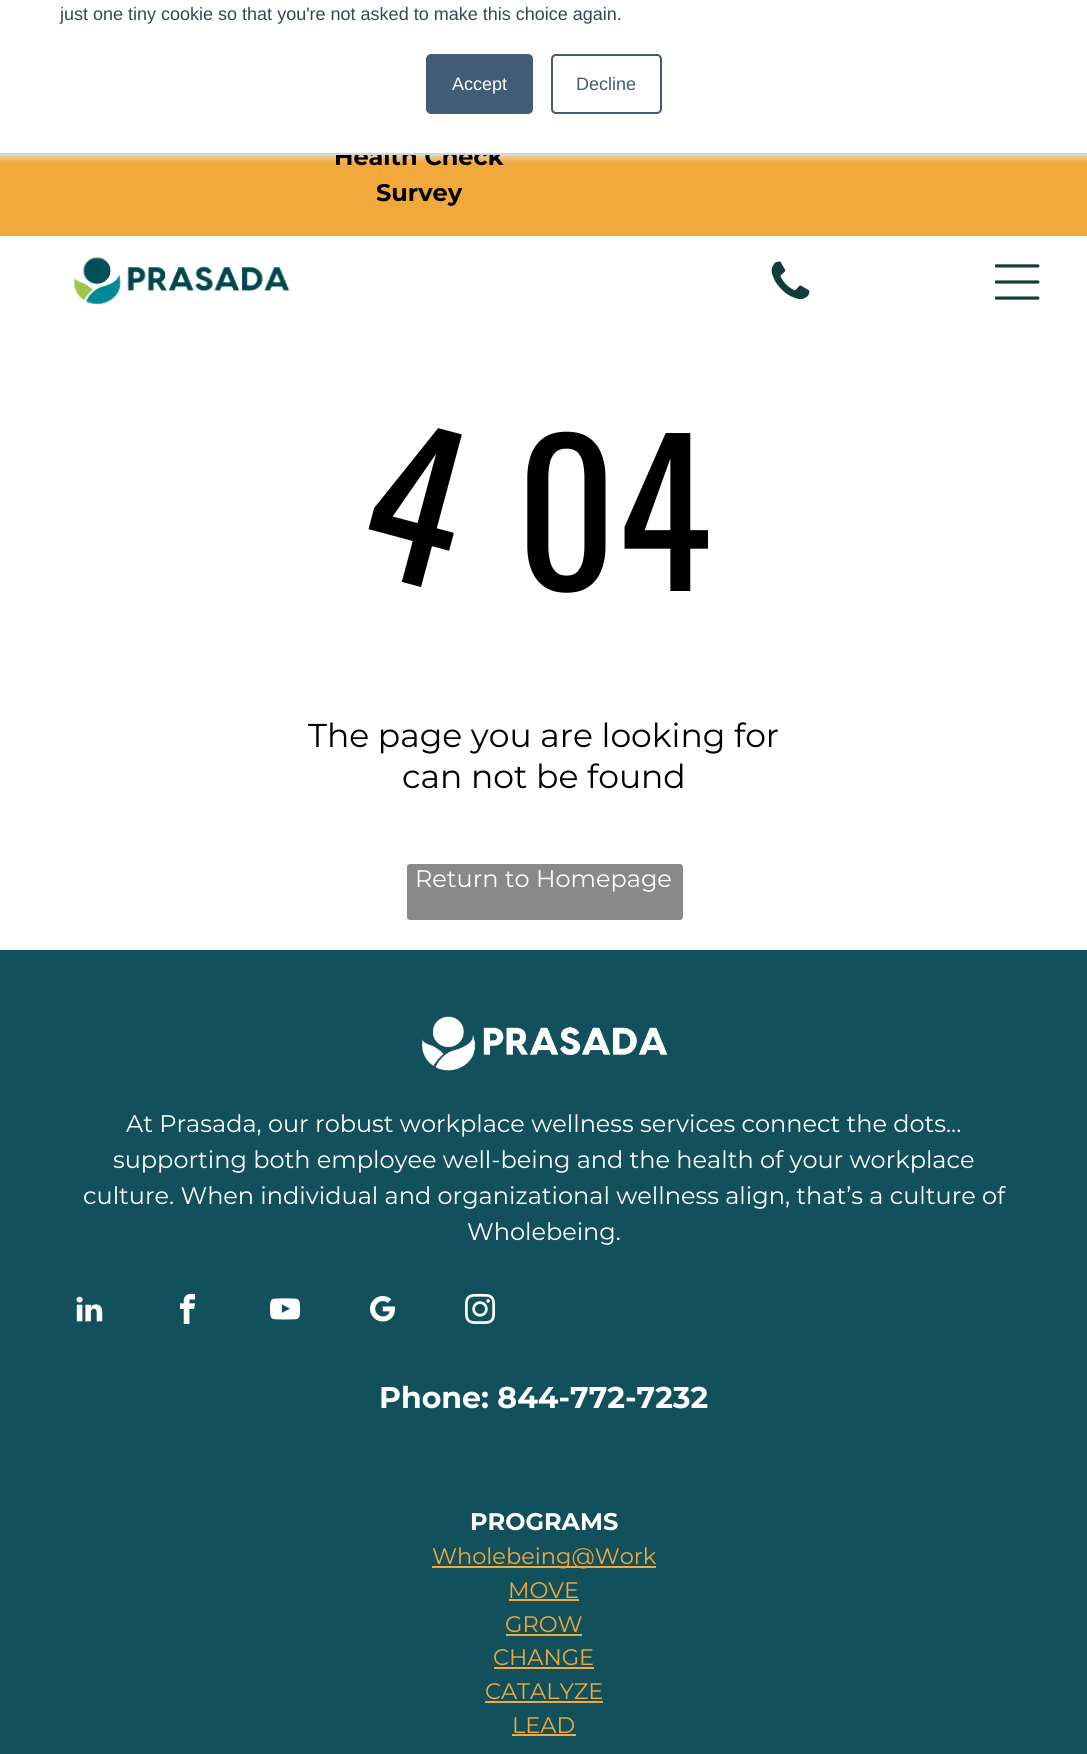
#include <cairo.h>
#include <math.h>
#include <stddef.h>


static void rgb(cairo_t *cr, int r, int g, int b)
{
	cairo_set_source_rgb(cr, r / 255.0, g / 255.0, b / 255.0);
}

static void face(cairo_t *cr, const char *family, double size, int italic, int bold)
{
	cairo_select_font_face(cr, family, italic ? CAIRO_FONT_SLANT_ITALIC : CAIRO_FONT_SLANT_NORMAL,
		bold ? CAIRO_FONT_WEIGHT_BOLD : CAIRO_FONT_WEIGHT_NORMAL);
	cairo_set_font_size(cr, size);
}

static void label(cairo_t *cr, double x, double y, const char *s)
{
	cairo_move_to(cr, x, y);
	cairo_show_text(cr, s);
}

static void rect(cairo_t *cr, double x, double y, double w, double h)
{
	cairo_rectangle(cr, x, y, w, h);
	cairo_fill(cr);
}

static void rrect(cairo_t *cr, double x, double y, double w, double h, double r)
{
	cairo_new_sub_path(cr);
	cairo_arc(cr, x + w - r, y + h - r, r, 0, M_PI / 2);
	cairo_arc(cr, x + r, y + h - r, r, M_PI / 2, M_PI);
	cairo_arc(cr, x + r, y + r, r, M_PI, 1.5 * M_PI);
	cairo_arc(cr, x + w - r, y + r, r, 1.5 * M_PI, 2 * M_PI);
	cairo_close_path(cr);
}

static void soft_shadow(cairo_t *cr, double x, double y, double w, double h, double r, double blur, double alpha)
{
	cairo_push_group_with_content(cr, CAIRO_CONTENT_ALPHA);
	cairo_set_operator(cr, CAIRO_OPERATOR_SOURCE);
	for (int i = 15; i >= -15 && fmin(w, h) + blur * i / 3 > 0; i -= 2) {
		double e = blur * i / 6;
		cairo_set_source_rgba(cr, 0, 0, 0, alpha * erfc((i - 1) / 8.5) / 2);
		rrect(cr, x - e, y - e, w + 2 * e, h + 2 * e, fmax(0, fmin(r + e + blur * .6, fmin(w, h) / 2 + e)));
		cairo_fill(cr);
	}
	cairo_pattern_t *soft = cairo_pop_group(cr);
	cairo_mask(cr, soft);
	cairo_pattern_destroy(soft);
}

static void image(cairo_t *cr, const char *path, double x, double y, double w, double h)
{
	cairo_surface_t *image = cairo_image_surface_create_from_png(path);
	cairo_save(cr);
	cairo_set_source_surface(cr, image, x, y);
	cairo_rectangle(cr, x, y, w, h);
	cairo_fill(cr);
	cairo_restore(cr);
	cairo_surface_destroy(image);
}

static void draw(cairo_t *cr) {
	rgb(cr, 255, 255, 255);
	cairo_paint(cr);
	rgb(cr, 242, 169, 59);
	rect(cr, 0, 155, 1087, 81);
	rgb(cr, 234, 240, 246);
	soft_shadow(cr, 0, -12, 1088, 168, 0, 4, 1);
	face(cr, "Montserrat", 24, 0, 1);
	rgb(cr, 0, 0, 0);
	label(cr, 334, 165, "Health Check");
	rgb(cr, 255, 255, 255);
	rect(cr, 0, 0, 1087, 153);
	rgb(cr, 203, 214, 226);
	rect(cr, 0, 153, 1087, 2);
	face(cr, "Liberation Sans", 18, 0, 0);
	rgb(cr, 51, 71, 91);
	label(cr, 60, 20, "just one tiny cookie so that you're not asked to make this choice again.");
	rgb(cr, 66, 91, 118);
	rrect(cr, 427, 55, 105, 58, 4);
	cairo_fill_preserve(cr);
	cairo_stroke(cr);
	rgb(cr, 255, 255, 255);
	label(cr, 452, 90, "Accept");
	rrect(cr, 552, 55, 109, 58, 4);
	rgb(cr, 66, 91, 118);
	cairo_stroke(cr);
	label(cr, 576, 90, "Decline");
	face(cr, "Montserrat", 24, 0, 1);
	rgb(cr, 0, 0, 0);
	label(cr, 376, 201, "Survey");
	image(cr, "image0.png", 73, 257, 217, 48);
	image(cr, "image1.png", 771, 261, 39, 39);
	image(cr, "image2.png", 995, 264, 45, 36);
	face(cr, "Oswald", 195, 0, 0);
	cairo_save(cr);
	cairo_translate(cr, 350, 568);
	cairo_rotate(cr, 15 * M_PI / 180);
	label(cr, 0, 0, "4");
	cairo_restore(cr);
	label(cr, 516, 591, "04");
	face(cr, "Montserrat", 33, 0, 0);
	label(cr, 308, 747, "The page you are looking for");
	label(cr, 402, 788, "can not be found");
	rgb(cr, 137, 137, 137);
	rrect(cr, 407, 864, 276, 56, 3);
	cairo_fill(cr);
	face(cr, "Montserrat", 24, 0, 0);
	rgb(cr, 255, 255, 255);
	label(cr, 415, 887, "Return to Homepage");
	rgb(cr, 18, 81, 91);
	rect(cr, 0, 950, 1087, 804);
	image(cr, "image3.png", 422, 1016, 246, 55);
	rgb(cr, 255, 255, 255);
	label(cr, 126, 1132, "At Prasada, our robust workplace wellness services connect the dots...");
	label(cr, 113, 1168, "supporting both employee well-being and the health of your workplace");
	label(cr, 83, 1204, "culture. When individual and organizational wellness align, that’s a culture of");
	label(cr, 467, 1240, "Wholebeing.");
	image(cr, "image4.png", 76, 1296, 27, 26);
	image(cr, "image5.png", 180, 1293, 16, 31);
	image(cr, "image6.png", 270, 1298, 31, 22);
	image(cr, "image7.png", 370, 1296, 25, 26);
	image(cr, "image8.png", 465, 1293, 30, 31);
	face(cr, "Montserrat", 30, 0, 1);
	label(cr, 379, 1408, "Phone: 844-772-7232");
	face(cr, "Montserrat", 24, 0, 1);
	label(cr, 470, 1530, "PROGRAMS");
	rgb(cr, 242, 169, 59);
	rect(cr, 432, 1566, 224, 2);
	face(cr, "Montserrat", 22.5, 0, 0);
	label(cr, 432, 1564, "Wholebeing@Work");
	label(cr, 508, 1598, "MOVE");
	rect(cr, 509, 1599, 70, 2);
	label(cr, 505, 1632, "GROW");
	rect(cr, 506, 1634, 76, 2);
	label(cr, 493, 1665, "CHANGE");
	rect(cr, 494, 1667, 100, 2);
	label(cr, 485, 1699, "CATALYZE");
	rect(cr, 485, 1701, 118, 2);
	label(cr, 512, 1733, "LEAD");
	rect(cr, 512, 1734, 64, 2);
}

int main(void) {
	cairo_surface_t *surface = cairo_image_surface_create(CAIRO_FORMAT_RGB24, 1087, 1754);
	cairo_t *cr = cairo_create(surface);
	cairo_font_options_t *options = cairo_font_options_create();
	cairo_font_options_set_hint_metrics(options, CAIRO_HINT_METRICS_OFF);
	cairo_font_options_set_hint_style(options, CAIRO_HINT_STYLE_NONE);
	cairo_set_font_options(cr, options);
	cairo_set_miter_limit(cr, 4);
	draw(cr);
	cairo_surface_write_to_png(surface, "render.png");
	cairo_font_options_destroy(options);
	cairo_destroy(cr);
	cairo_surface_destroy(surface);
	return 0;
}
